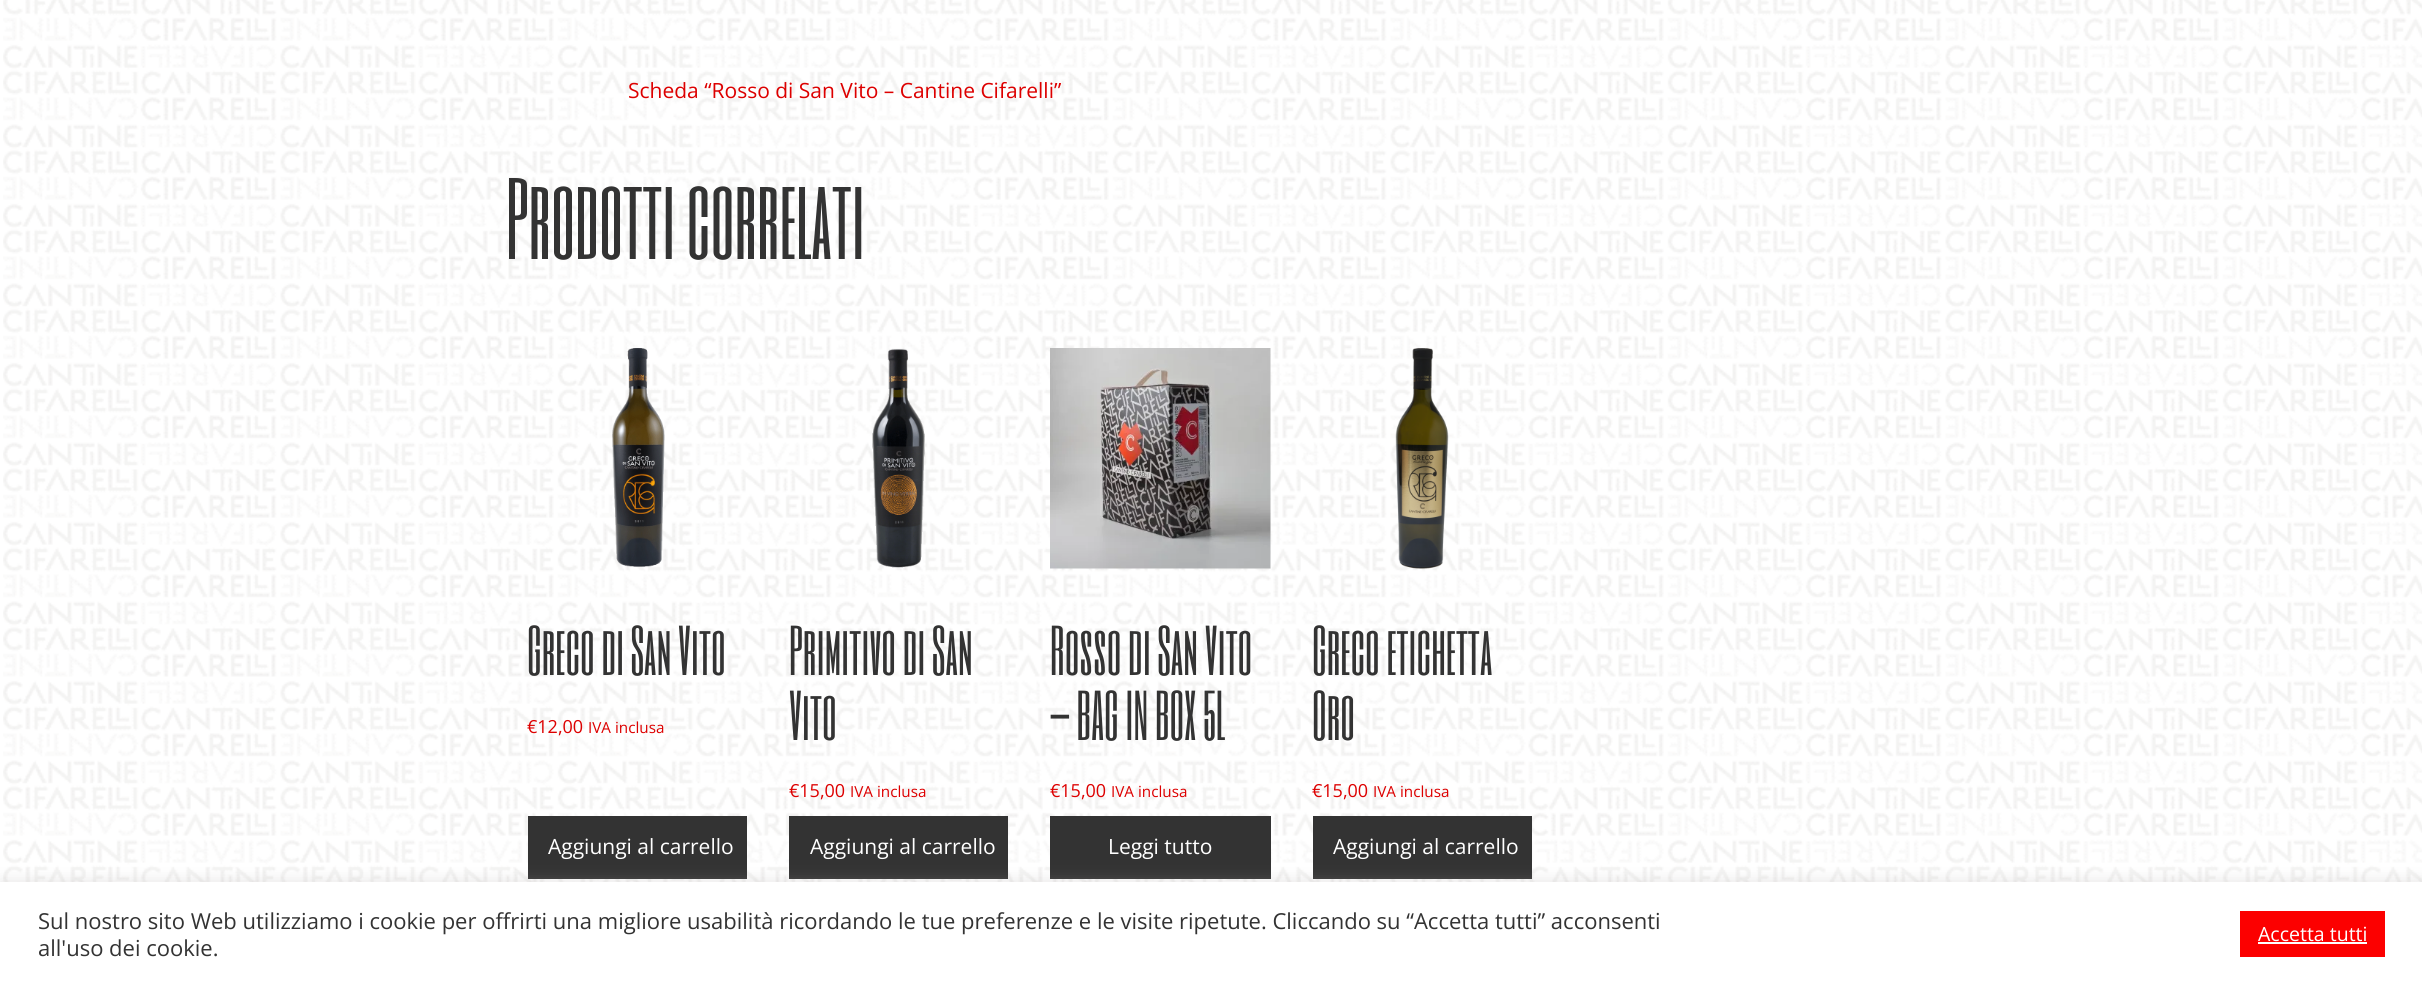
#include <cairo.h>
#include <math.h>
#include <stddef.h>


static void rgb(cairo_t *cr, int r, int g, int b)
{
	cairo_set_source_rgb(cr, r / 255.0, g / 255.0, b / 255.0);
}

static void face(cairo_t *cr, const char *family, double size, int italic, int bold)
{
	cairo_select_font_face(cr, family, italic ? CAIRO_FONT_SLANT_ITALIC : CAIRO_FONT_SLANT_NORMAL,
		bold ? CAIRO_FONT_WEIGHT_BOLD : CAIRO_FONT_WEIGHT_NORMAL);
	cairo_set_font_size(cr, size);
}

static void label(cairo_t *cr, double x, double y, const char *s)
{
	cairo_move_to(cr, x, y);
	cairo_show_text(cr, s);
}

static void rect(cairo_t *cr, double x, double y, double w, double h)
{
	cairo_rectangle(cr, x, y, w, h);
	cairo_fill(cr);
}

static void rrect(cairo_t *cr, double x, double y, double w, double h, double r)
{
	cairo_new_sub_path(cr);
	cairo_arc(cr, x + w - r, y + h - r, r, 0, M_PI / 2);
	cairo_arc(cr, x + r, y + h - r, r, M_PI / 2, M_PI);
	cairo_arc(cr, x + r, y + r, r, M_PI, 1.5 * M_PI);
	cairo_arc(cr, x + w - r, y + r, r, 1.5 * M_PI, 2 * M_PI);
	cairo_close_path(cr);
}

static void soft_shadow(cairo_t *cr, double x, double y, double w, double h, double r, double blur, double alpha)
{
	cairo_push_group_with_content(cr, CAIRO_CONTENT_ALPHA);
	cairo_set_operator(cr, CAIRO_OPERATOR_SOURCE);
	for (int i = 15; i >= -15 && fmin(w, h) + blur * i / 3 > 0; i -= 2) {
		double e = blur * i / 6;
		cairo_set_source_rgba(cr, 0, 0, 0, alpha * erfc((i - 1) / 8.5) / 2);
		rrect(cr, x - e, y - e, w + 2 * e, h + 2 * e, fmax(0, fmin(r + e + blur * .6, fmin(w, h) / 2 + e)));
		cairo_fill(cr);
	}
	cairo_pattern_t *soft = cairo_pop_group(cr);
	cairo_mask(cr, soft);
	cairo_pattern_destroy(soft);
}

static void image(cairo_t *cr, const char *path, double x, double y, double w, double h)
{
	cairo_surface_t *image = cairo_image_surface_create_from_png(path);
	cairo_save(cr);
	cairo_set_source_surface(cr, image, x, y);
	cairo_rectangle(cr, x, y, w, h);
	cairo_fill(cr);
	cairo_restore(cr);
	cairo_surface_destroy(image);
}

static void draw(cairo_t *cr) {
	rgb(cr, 255, 255, 255);
	cairo_paint(cr);
	image(cr, "image0.png", 3, 0, 2419, 882);
	face(cr, "Open Sans", 21, 0, 0);
	rgb(cr, 221, 0, 0);
	label(cr, 628, 98, "Scheda “Rosso di San Vito – Cantine Cifarelli”");
	face(cr, "Six Caps", 96, 0, 0);
	rgb(cr, 51, 51, 51);
	label(cr, 506, 259, "Prodotti correlati");
	image(cr, "image1.png", 612, 348, 53, 219);
	face(cr, "Six Caps", 58.5, 0, 0);
	label(cr, 527, 675, "Greco di San Vito");
	face(cr, "Open Sans", 18, 0, 0);
	rgb(cr, 221, 0, 0);
	label(cr, 527, 733, "€12,00");
	face(cr, "Open Sans", 15.25, 0, 0);
	label(cr, 588, 733, "IVA inclusa");
	rgb(cr, 51, 51, 51);
	rect(cr, 528, 816, 219, 63);
	face(cr, "Open Sans", 21, 0, 0);
	rgb(cr, 255, 255, 255);
	label(cr, 548, 854, "Aggiungi al carrello");
	image(cr, "image2.png", 872, 348, 53, 220);
	face(cr, "Six Caps", 58.5, 0, 0);
	rgb(cr, 51, 51, 51);
	label(cr, 789, 675, "Primitivo di San");
	label(cr, 789, 740, "Vito");
	face(cr, "Open Sans", 18, 0, 0);
	rgb(cr, 221, 0, 0);
	label(cr, 789, 797, "€15,00");
	face(cr, "Open Sans", 15.25, 0, 0);
	label(cr, 850, 797, "IVA inclusa");
	rgb(cr, 51, 51, 51);
	rect(cr, 789, 816, 219, 63);
	face(cr, "Open Sans", 21, 0, 0);
	rgb(cr, 255, 255, 255);
	label(cr, 810, 854, "Aggiungi al carrello");
	image(cr, "image3.png", 1050, 348, 221, 221);
	face(cr, "Six Caps", 58.5, 0, 0);
	rgb(cr, 51, 51, 51);
	label(cr, 1050, 675, "Rosso di San Vito");
	label(cr, 1050, 740, "– BAG IN BOX 5L");
	face(cr, "Open Sans", 18, 0, 0);
	rgb(cr, 221, 0, 0);
	label(cr, 1050, 797, "€15,00");
	face(cr, "Open Sans", 15.25, 0, 0);
	label(cr, 1111, 797, "IVA inclusa");
	rgb(cr, 51, 51, 51);
	rect(cr, 1050, 816, 221, 63);
	face(cr, "Open Sans", 21, 0, 0);
	rgb(cr, 255, 255, 255);
	label(cr, 1108, 854, "Leggi tutto");
	image(cr, "image4.png", 1395, 348, 54, 221);
	face(cr, "Six Caps", 58.5, 0, 0);
	rgb(cr, 51, 51, 51);
	label(cr, 1312, 675, "Greco etichetta");
	label(cr, 1312, 740, "Oro");
	face(cr, "Open Sans", 18, 0, 0);
	rgb(cr, 221, 0, 0);
	label(cr, 1312, 797, "€15,00");
	face(cr, "Open Sans", 15.25, 0, 0);
	label(cr, 1373, 797, "IVA inclusa");
	rgb(cr, 51, 51, 51);
	rect(cr, 1313, 816, 219, 63);
	face(cr, "Open Sans", 21, 0, 0);
	rgb(cr, 255, 255, 255);
	label(cr, 1333, 854, "Aggiungi al carrello");
	rgb(cr, 172, 171, 171);
	soft_shadow(cr, 0, 881, 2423, 103, 0, 7.5, 0.3);
	rgb(cr, 255, 255, 255);
	rect(cr, 0, 882, 2422, 103);
	face(cr, "Open Sans", 22, 0, 0);
	rgb(cr, 51, 51, 51);
	label(cr, 38, 929, "Sul nostro sito Web utilizziamo i cookie per offrirti una migliore usabilità ricordando le tue preferenze e le visite ripetute. Cliccando su “Accetta tutti” acconsenti");
	label(cr, 38, 956, "all'uso dei cookie.");
	rgb(cr, 252, 0, 0);
	rect(cr, 2240, 911, 145, 46);
	face(cr, "Open Sans", 19.5, 0, 0);
	rgb(cr, 255, 255, 255);
	label(cr, 2258, 941, "Accetta tutti");
	rect(cr, 2258, 942, 109, 2);
}

int main(void) {
	cairo_surface_t *surface = cairo_image_surface_create(CAIRO_FORMAT_RGB24, 2422, 985);
	cairo_t *cr = cairo_create(surface);
	cairo_font_options_t *options = cairo_font_options_create();
	cairo_font_options_set_hint_metrics(options, CAIRO_HINT_METRICS_OFF);
	cairo_font_options_set_hint_style(options, CAIRO_HINT_STYLE_NONE);
	cairo_set_font_options(cr, options);
	cairo_set_miter_limit(cr, 4);
	draw(cr);
	cairo_surface_write_to_png(surface, "render.png");
	cairo_font_options_destroy(options);
	cairo_destroy(cr);
	cairo_surface_destroy(surface);
	return 0;
}
